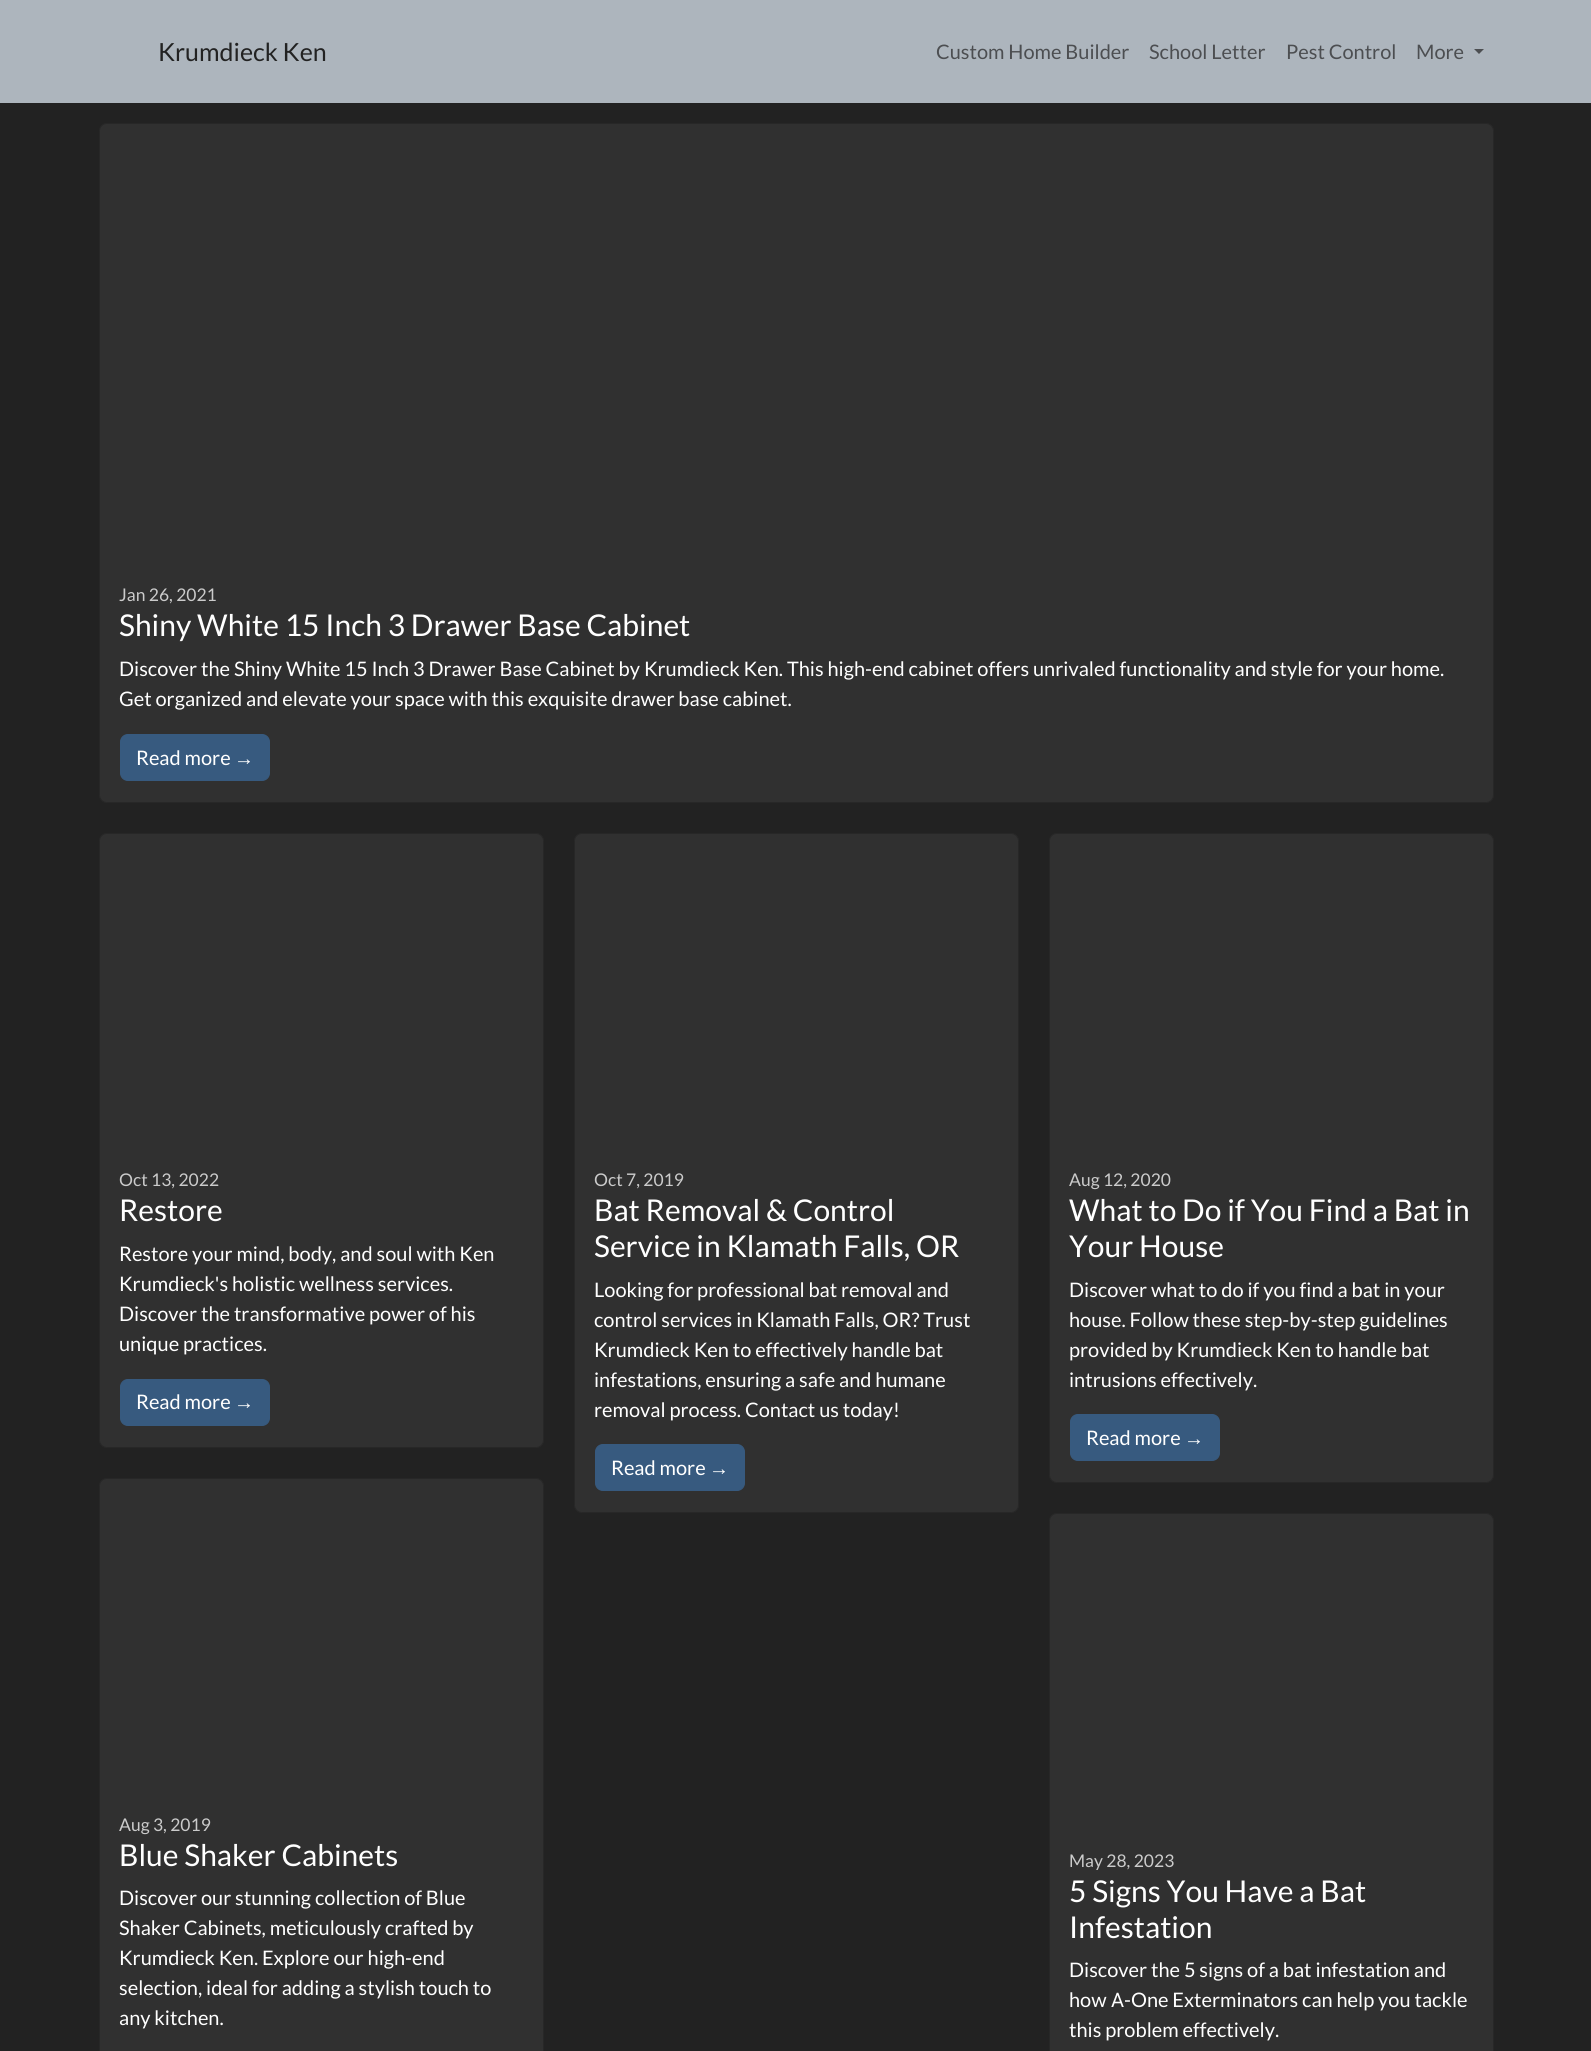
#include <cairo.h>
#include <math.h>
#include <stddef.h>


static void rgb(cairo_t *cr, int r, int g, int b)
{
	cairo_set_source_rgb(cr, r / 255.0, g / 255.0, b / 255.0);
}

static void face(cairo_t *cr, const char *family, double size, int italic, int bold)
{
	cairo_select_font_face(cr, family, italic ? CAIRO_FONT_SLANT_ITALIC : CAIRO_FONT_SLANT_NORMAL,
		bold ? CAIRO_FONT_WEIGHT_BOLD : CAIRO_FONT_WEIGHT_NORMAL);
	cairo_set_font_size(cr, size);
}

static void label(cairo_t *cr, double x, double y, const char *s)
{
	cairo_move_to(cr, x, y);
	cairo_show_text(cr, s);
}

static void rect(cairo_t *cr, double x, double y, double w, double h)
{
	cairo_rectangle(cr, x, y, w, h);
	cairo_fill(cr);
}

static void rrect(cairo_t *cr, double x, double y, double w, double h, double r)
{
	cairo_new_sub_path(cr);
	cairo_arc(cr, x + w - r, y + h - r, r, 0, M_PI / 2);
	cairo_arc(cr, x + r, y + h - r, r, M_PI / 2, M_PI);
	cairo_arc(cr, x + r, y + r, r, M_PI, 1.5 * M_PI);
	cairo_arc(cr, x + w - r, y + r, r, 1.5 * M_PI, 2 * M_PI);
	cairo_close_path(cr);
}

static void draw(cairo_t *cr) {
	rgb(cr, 34, 34, 34);
	cairo_paint(cr);
	rgb(cr, 173, 181, 189);
	rect(cr, 0, 0, 1591, 103);
	face(cr, "Lato", 25, 0, 0);
	rgb(cr, 34, 34, 34);
	label(cr, 158, 61, "Krumdieck Ken");
	face(cr, "Lato", 20, 0, 0);
	rgb(cr, 76, 78, 81);
	label(cr, 936, 59, "Custom Home Builder");
	label(cr, 1149, 59, "School Letter");
	label(cr, 1286, 59, "Pest Control");
	label(cr, 1416, 59, "More");
	cairo_new_path(cr);
	cairo_move_to(cr, 1474, 49);
	cairo_line_to(cr, 1484, 49);
	cairo_line_to(cr, 1479, 54);
	cairo_close_path(cr);
	cairo_fill(cr);
	rgb(cr, 48, 48, 48);
	rrect(cr, 99, 123, 1395, 680, 8);
	cairo_fill(cr);
	rrect(cr, 99.5, 123.5, 1394, 679, 7.5);
	cairo_set_source_rgba(cr, 0, 0, 0, 0.18);
	cairo_set_line_width(cr, 1);
	cairo_stroke(cr);
	face(cr, "Lato", 17.5, 0, 0);
	rgb(cr, 203, 203, 203);
	label(cr, 119, 601, "Jan 26, 2021");
	face(cr, "Lato", 30, 0, 0);
	rgb(cr, 255, 255, 255);
	label(cr, 119, 636, "Shiny White 15 Inch 3 Drawer Base Cabinet");
	face(cr, "Lato", 20, 0, 0);
	label(cr, 119, 676, "Discover the Shiny White 15 Inch 3 Drawer Base Cabinet by Krumdieck Ken. This high-end cabinet offers unrivaled functionality and style for your home.");
	label(cr, 119, 706, "Get organized and elevate your space with this exquisite drawer base cabinet.");
	rgb(cr, 55, 90, 127);
	rrect(cr, 120.5, 734.5, 149, 46, 7.5);
	cairo_fill_preserve(cr);
	cairo_stroke(cr);
	rgb(cr, 255, 255, 255);
	label(cr, 136, 765, "Read more");
	face(cr, "Liberation Sans", 20, 0, 0);
	label(cr, 234, 765, "→");
	rgb(cr, 48, 48, 48);
	rrect(cr, 99, 833, 445, 615, 8);
	cairo_fill(cr);
	rrect(cr, 99.5, 833.5, 444, 614, 7.5);
	cairo_set_source_rgba(cr, 0, 0, 0, 0.18);
	cairo_stroke(cr);
	face(cr, "Lato", 17.5, 0, 0);
	rgb(cr, 203, 203, 203);
	label(cr, 119, 1186, "Oct 13, 2022");
	face(cr, "Lato", 30, 0, 0);
	rgb(cr, 255, 255, 255);
	label(cr, 119, 1221, "Restore");
	face(cr, "Lato", 20, 0, 0);
	label(cr, 119, 1261, "Restore your mind, body, and soul with Ken");
	label(cr, 119, 1291, "Krumdieck's holistic wellness services.");
	label(cr, 119, 1321, "Discover the transformative power of his");
	label(cr, 119, 1351, "unique practices.");
	rgb(cr, 55, 90, 127);
	rrect(cr, 120.5, 1379.5, 149, 46, 7.5);
	cairo_fill_preserve(cr);
	cairo_stroke(cr);
	rgb(cr, 255, 255, 255);
	label(cr, 136, 1409, "Read more");
	face(cr, "Liberation Sans", 20, 0, 0);
	label(cr, 234, 1409, "→");
	rgb(cr, 48, 48, 48);
	rrect(cr, 574, 833, 445, 680, 8);
	cairo_fill(cr);
	rrect(cr, 574.5, 833.5, 444, 679, 7.5);
	cairo_set_source_rgba(cr, 0, 0, 0, 0.18);
	cairo_stroke(cr);
	face(cr, "Lato", 17.5, 0, 0);
	rgb(cr, 203, 203, 203);
	label(cr, 594, 1186, "Oct 7, 2019");
	face(cr, "Lato", 30, 0, 0);
	rgb(cr, 255, 255, 255);
	label(cr, 594, 1221, "Bat Removal & Control");
	label(cr, 594, 1257, "Service in Klamath Falls, OR");
	face(cr, "Lato", 20, 0, 0);
	label(cr, 594, 1297, "Looking for professional bat removal and");
	label(cr, 594, 1327, "control services in Klamath Falls, OR? Trust");
	label(cr, 594, 1357, "Krumdieck Ken to effectively handle bat");
	label(cr, 594, 1387, "infestations, ensuring a safe and humane");
	label(cr, 594, 1417, "removal process. Contact us today!");
	rgb(cr, 55, 90, 127);
	rrect(cr, 595.5, 1444.5, 149, 46, 7.5);
	cairo_fill_preserve(cr);
	cairo_stroke(cr);
	rgb(cr, 255, 255, 255);
	label(cr, 611, 1475, "Read more");
	face(cr, "Liberation Sans", 20, 0, 0);
	label(cr, 709, 1475, "→");
	rgb(cr, 48, 48, 48);
	rrect(cr, 1049, 833, 445, 650, 8);
	cairo_fill(cr);
	rrect(cr, 1049.5, 833.5, 444, 649, 7.5);
	cairo_set_source_rgba(cr, 0, 0, 0, 0.18);
	cairo_stroke(cr);
	face(cr, "Lato", 17.5, 0, 0);
	rgb(cr, 203, 203, 203);
	label(cr, 1069, 1186, "Aug 12, 2020");
	face(cr, "Lato", 30, 0, 0);
	rgb(cr, 255, 255, 255);
	label(cr, 1069, 1221, "What to Do if You Find a Bat in");
	label(cr, 1069, 1257, "Your House");
	face(cr, "Lato", 20, 0, 0);
	label(cr, 1069, 1297, "Discover what to do if you find a bat in your");
	label(cr, 1069, 1327, "house. Follow these step-by-step guidelines");
	label(cr, 1069, 1357, "provided by Krumdieck Ken to handle bat");
	label(cr, 1069, 1387, "intrusions effectively.");
	rgb(cr, 55, 90, 127);
	rrect(cr, 1070.5, 1414.5, 149, 46, 7.5);
	cairo_fill_preserve(cr);
	cairo_stroke(cr);
	rgb(cr, 255, 255, 255);
	label(cr, 1086, 1445, "Read more");
	face(cr, "Liberation Sans", 20, 0, 0);
	label(cr, 1184, 1445, "→");
	rgb(cr, 48, 48, 48);
	rrect(cr, 99, 1478, 445, 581, 8);
	cairo_fill(cr);
	rrect(cr, 99.5, 1478.5, 444, 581, 7.5);
	cairo_set_source_rgba(cr, 0, 0, 0, 0.18);
	cairo_stroke(cr);
	face(cr, "Lato", 17.5, 0, 0);
	rgb(cr, 203, 203, 203);
	label(cr, 119, 1831, "Aug 3, 2019");
	face(cr, "Lato", 30, 0, 0);
	rgb(cr, 255, 255, 255);
	label(cr, 119, 1866, "Blue Shaker Cabinets");
	face(cr, "Lato", 20, 0, 0);
	label(cr, 119, 1905, "Discover our stunning collection of Blue");
	label(cr, 119, 1935, "Shaker Cabinets, meticulously crafted by");
	label(cr, 119, 1965, "Krumdieck Ken. Explore our high-end");
	label(cr, 119, 1995, "selection, ideal for adding a stylish touch to");
	label(cr, 119, 2025, "any kitchen.");
	rgb(cr, 48, 48, 48);
	rrect(cr, 1049, 1513, 445, 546, 8);
	cairo_fill(cr);
	rrect(cr, 1049.5, 1513.5, 444, 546, 7.5);
	cairo_set_source_rgba(cr, 0, 0, 0, 0.18);
	cairo_stroke(cr);
	face(cr, "Lato", 17.5, 0, 0);
	rgb(cr, 203, 203, 203);
	label(cr, 1069, 1867, "May 28, 2023");
	face(cr, "Lato", 30, 0, 0);
	rgb(cr, 255, 255, 255);
	label(cr, 1069, 1902, "5 Signs You Have a Bat");
	label(cr, 1069, 1938, "Infestation");
	face(cr, "Lato", 20, 0, 0);
	label(cr, 1069, 1977, "Discover the 5 signs of a bat infestation and");
	label(cr, 1069, 2007, "how");
	face(cr, "Roboto", 20, 0, 0);
	label(cr, 1111, 2007, "А");
	face(cr, "Lato", 20, 0, 0);
	label(cr, 1124, 2007, "-One Exterminators can help you tackle");
	label(cr, 1069, 2037, "this problem effectively.");
}

int main(void) {
	cairo_surface_t *surface = cairo_image_surface_create(CAIRO_FORMAT_RGB24, 1591, 2051);
	cairo_t *cr = cairo_create(surface);
	cairo_font_options_t *options = cairo_font_options_create();
	cairo_font_options_set_hint_metrics(options, CAIRO_HINT_METRICS_OFF);
	cairo_font_options_set_hint_style(options, CAIRO_HINT_STYLE_NONE);
	cairo_set_font_options(cr, options);
	cairo_set_miter_limit(cr, 4);
	draw(cr);
	cairo_surface_write_to_png(surface, "render.png");
	cairo_font_options_destroy(options);
	cairo_destroy(cr);
	cairo_surface_destroy(surface);
	return 0;
}
